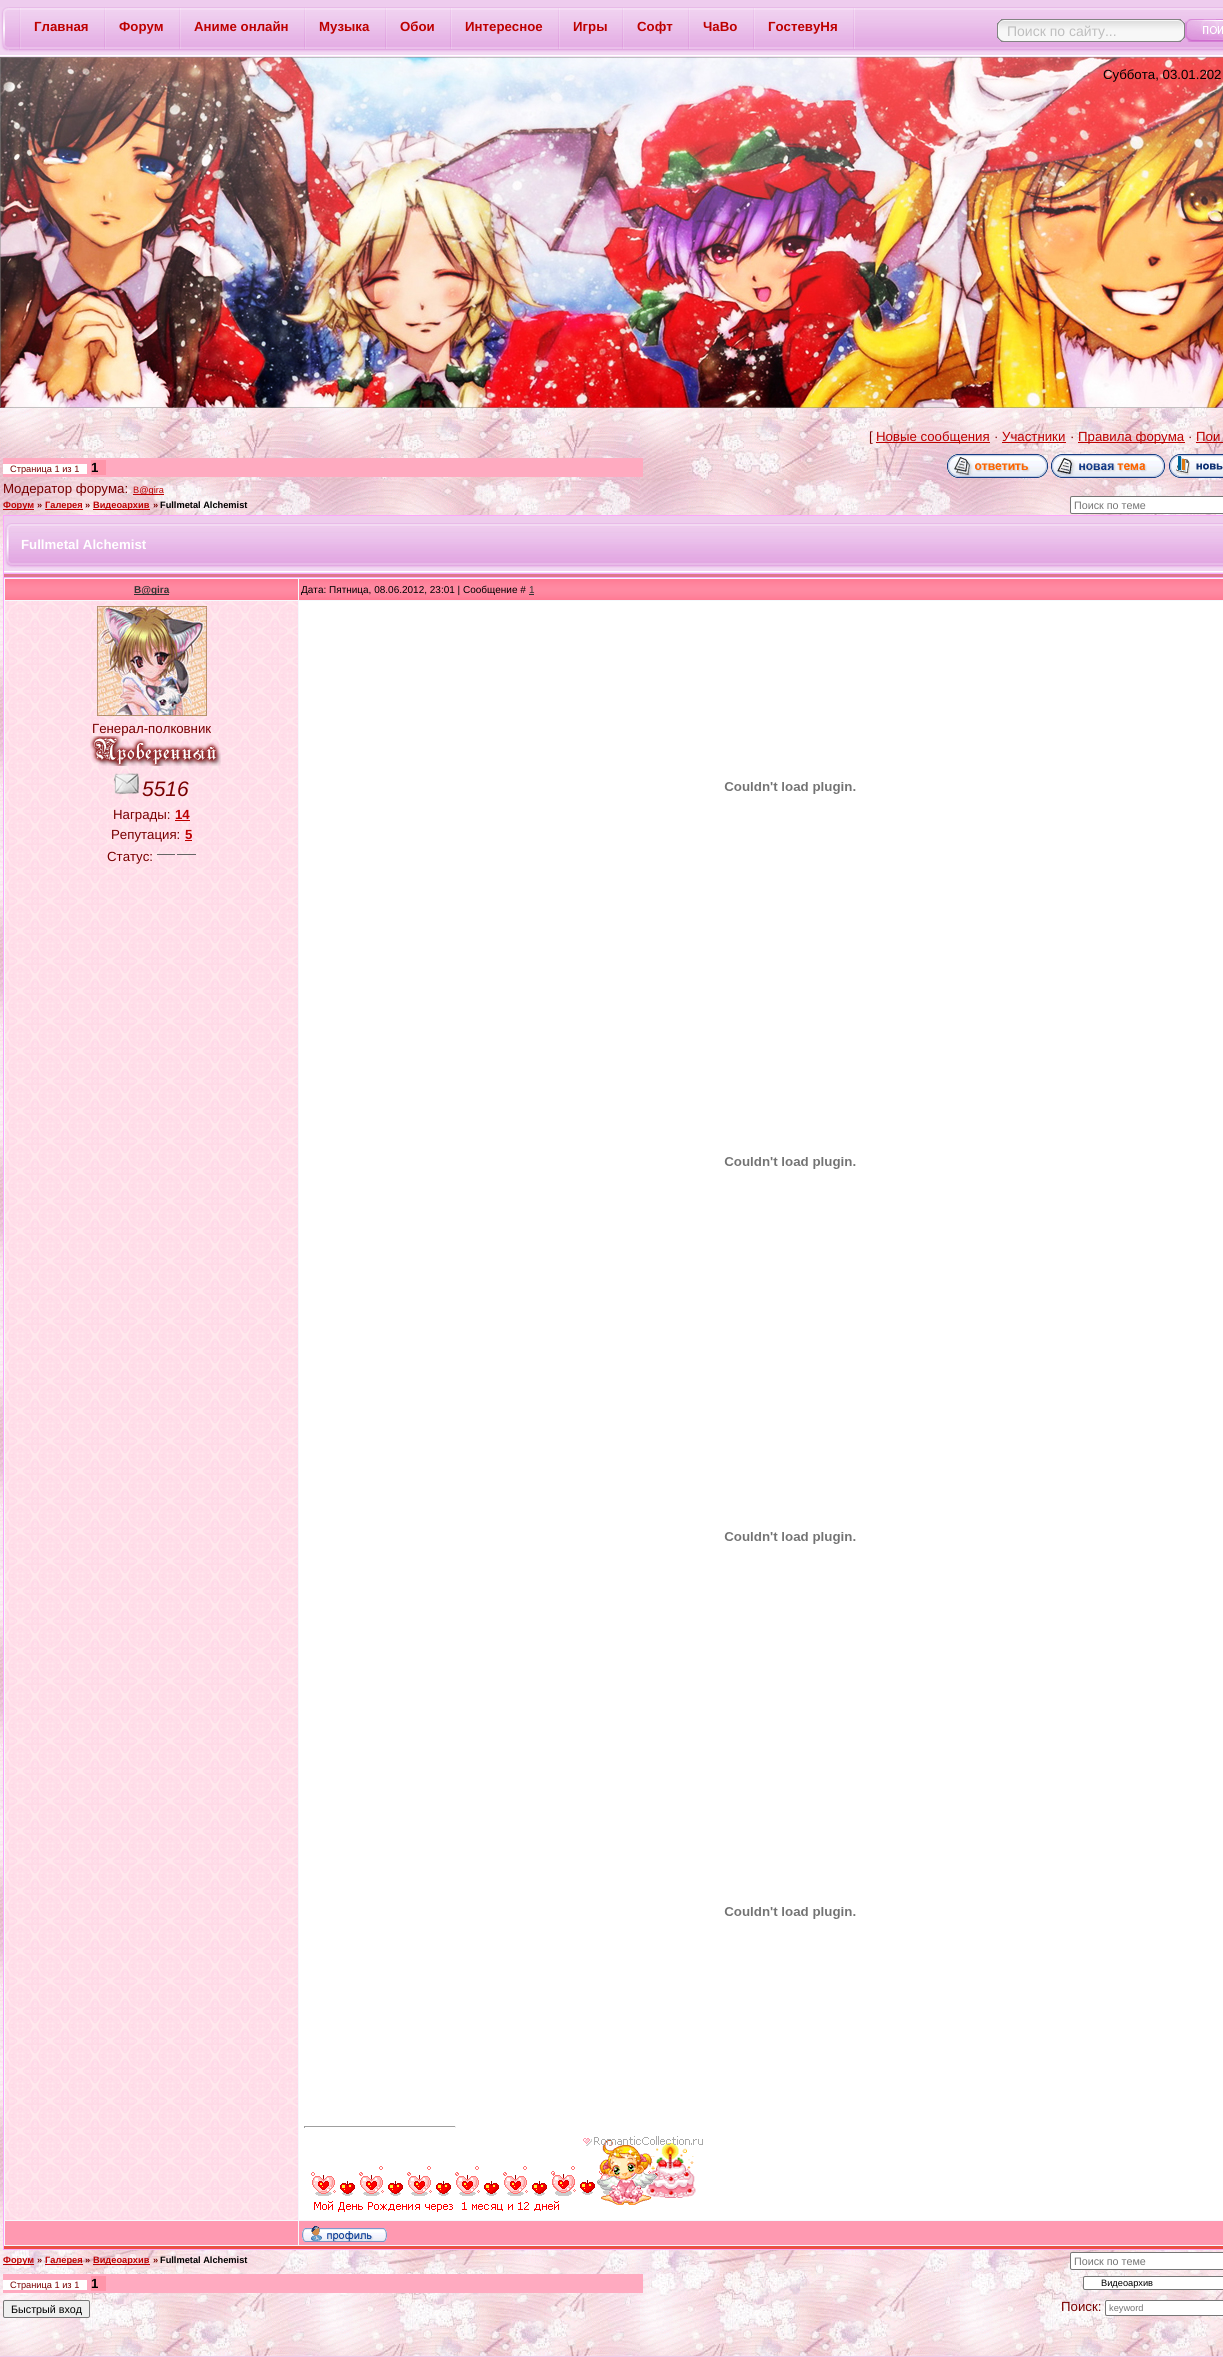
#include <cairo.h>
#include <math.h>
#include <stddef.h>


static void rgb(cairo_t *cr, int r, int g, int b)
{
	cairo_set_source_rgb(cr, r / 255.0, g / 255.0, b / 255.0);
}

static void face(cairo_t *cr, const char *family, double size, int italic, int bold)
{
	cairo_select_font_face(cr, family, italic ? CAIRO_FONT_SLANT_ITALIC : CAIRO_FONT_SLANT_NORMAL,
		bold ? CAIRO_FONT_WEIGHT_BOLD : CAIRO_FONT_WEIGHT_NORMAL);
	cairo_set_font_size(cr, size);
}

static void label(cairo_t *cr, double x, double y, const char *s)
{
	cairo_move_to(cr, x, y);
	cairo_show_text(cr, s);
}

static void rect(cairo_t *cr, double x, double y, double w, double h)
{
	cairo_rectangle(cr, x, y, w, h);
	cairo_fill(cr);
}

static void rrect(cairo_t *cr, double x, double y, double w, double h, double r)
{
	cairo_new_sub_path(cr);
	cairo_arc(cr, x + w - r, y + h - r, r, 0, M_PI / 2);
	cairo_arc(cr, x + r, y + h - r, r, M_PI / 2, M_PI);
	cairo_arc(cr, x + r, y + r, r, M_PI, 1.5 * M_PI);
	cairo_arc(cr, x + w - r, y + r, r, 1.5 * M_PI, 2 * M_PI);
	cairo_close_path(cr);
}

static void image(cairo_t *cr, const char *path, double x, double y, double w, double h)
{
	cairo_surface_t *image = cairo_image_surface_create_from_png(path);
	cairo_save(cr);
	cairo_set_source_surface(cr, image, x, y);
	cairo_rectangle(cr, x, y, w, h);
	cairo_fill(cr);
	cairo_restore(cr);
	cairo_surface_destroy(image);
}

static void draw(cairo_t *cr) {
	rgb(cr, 255, 255, 255);
	cairo_paint(cr);
	image(cr, "image0.png", 0, 408, 1223, 1948);
	image(cr, "image1.png", 0, 0, 9, 57);
	image(cr, "image2.png", 9, 0, 988, 57);
	image(cr, "image3.png", 19, 8, 85, 41);
	face(cr, "Liberation Sans", 13.25, 0, 1);
	rgb(cr, 189, 0, 0);
	label(cr, 34, 31, "Главная");
	image(cr, "image4.png", 104, 8, 75, 41);
	label(cr, 119, 31, "Форум");
	image(cr, "image5.png", 179, 8, 125, 41);
	label(cr, 194, 31, "Аниме онлайн");
	image(cr, "image6.png", 304, 8, 81, 41);
	label(cr, 319, 31, "Музыка");
	image(cr, "image7.png", 385, 8, 65, 41);
	label(cr, 400, 31, "Обои");
	image(cr, "image8.png", 450, 8, 108, 41);
	label(cr, 465, 31, "Интересное");
	image(cr, "image9.png", 558, 8, 64, 41);
	label(cr, 573, 31, "Игры");
	image(cr, "image10.png", 622, 8, 66, 41);
	label(cr, 637, 31, "Софт");
	image(cr, "image7.png", 688, 8, 65, 41);
	label(cr, 703, 31, "ЧаВо");
	image(cr, "image11.png", 753, 8, 100, 41);
	label(cr, 768, 31, "ГостевуНя");
	image(cr, "image12.png", 853, 8, 2, 41);
	image(cr, "image13.png", 997, 0, 226, 57);
	image(cr, "image14.png", 997, 19, 188, 23);
	face(cr, "Liberation Sans", 14, 0, 0);
	rgb(cr, 190, 190, 190);
	label(cr, 1007, 36, "Поиск по сайту...");
	image(cr, "image15.png", 1185, 19, 38, 23);
	image(cr, "image16.png", 0, 57, 1223, 351);
	face(cr, "Liberation Sans", 13.25, 0, 0);
	rgb(cr, 0, 0, 0);
	label(cr, 1103, 79, "Суббота, 03.01.202");
	rgb(cr, 121, 0, 0);
	label(cr, 869, 441, "[");
	rgb(cr, 189, 0, 0);
	rect(cr, 876, 442, 114, 1);
	label(cr, 876, 441, "Новые сообщения");
	rgb(cr, 121, 0, 0);
	label(cr, 994, 441, "·");
	rgb(cr, 189, 0, 0);
	label(cr, 1002, 441, "Участники");
	rect(cr, 1002, 442, 64, 1);
	rgb(cr, 121, 0, 0);
	label(cr, 1070, 441, "·");
	rgb(cr, 189, 0, 0);
	rect(cr, 1078, 442, 107, 1);
	label(cr, 1078, 441, "Правила форума");
	rgb(cr, 121, 0, 0);
	label(cr, 1188, 441, "·");
	rgb(cr, 189, 0, 0);
	label(cr, 1196, 441, "Пои");
	rect(cr, 1196, 442, 27, 1);
	rgb(cr, 255, 170, 192);
	rect(cr, 3, 458, 640, 19);
	rgb(cr, 255, 255, 255);
	rect(cr, 3, 464, 84, 10);
	face(cr, "Liberation Sans", 9.25, 0, 0);
	rgb(cr, 121, 0, 0);
	label(cr, 10, 472, "Страница 1 из 1");
	rgb(cr, 255, 149, 169);
	rect(cr, 91, 460, 15, 15);
	face(cr, "Liberation Sans", 13.25, 0, 1);
	rgb(cr, 0, 0, 0);
	label(cr, 91, 472, "1");
	image(cr, "image17.png", 947, 454, 101, 24);
	image(cr, "image18.png", 1051, 454, 114, 24);
	image(cr, "image19.png", 1169, 454, 54, 24);
	face(cr, "Liberation Sans", 13.25, 0, 0);
	rgb(cr, 121, 0, 0);
	label(cr, 3, 493, "Модератор форума:");
	rgb(cr, 189, 0, 0);
	rect(cr, 133, 494, 31, 1);
	face(cr, "Liberation Sans", 9.25, 0, 0);
	label(cr, 133, 493, "B@girа");
	rect(cr, 3, 509, 31, 1);
	face(cr, "Liberation Sans", 9.25, 0, 1);
	label(cr, 3, 508, "Форум");
	rgb(cr, 121, 0, 0);
	label(cr, 37, 508, "»");
	rgb(cr, 189, 0, 0);
	rect(cr, 45, 509, 38, 1);
	label(cr, 45, 508, "Галерея");
	rgb(cr, 121, 0, 0);
	label(cr, 85, 508, "»");
	rgb(cr, 189, 0, 0);
	rect(cr, 93, 509, 57, 1);
	label(cr, 93, 508, "Видеоархив");
	rgb(cr, 121, 0, 0);
	label(cr, 153, 508, "»");
	rgb(cr, 0, 0, 0);
	label(cr, 160, 508, "Fullmetal Alchemist");
	rgb(cr, 255, 255, 255);
	rrect(cr, 1070.5, 496.5, 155, 17, 1.5);
	cairo_fill_preserve(cr);
	rgb(cr, 118, 118, 118);
	cairo_set_line_width(cr, 1);
	cairo_stroke(cr);
	face(cr, "Liberation Sans", 10.75, 0, 0);
	rgb(cr, 117, 117, 117);
	label(cr, 1074, 509, "Поиск по теме");
	rgb(cr, 251, 167, 251);
	rect(cr, 3, 515, 1220, 1735);
	image(cr, "image20.png", 4, 516, 1219, 57);
	face(cr, "Liberation Sans", 13.25, 0, 1);
	rgb(cr, 255, 255, 255);
	label(cr, 21, 549, "Fullmetal Alchemist");
	rgb(cr, 221, 121, 140);
	rect(cr, 4, 574, 1219, 3);
	rgb(cr, 245, 249, 253);
	rect(cr, 4, 578, 1219, 1668);
	rgb(cr, 235, 79, 69);
	rect(cr, 4, 2246, 1219, 3);
	image(cr, "image21.png", 5, 579, 293, 21);
	rgb(cr, 51, 51, 51);
	rect(cr, 134, 594, 35, 1);
	face(cr, "Liberation Sans", 10, 0, 1);
	label(cr, 134, 593, "B@girа");
	image(cr, "image22.png", 299, 579, 924, 21);
	face(cr, "Liberation Sans", 10, 0, 0);
	rgb(cr, 0, 0, 0);
	label(cr, 301, 593, "Дата: Пятница, 08.06.2012, 23:01 | Сообщение #");
	rgb(cr, 51, 51, 51);
	label(cr, 529, 593, "1");
	rect(cr, 529, 594, 5, 1);
	image(cr, "image23.png", 5, 601, 293, 1619);
	image(cr, "image24.png", 97, 606, 110, 110);
	face(cr, "Liberation Sans", 13.25, 0, 0);
	rgb(cr, 121, 0, 0);
	label(cr, 92, 733, "Генерал-полковник");
	image(cr, "image25.png", 90, 736, 131, 30);
	image(cr, "image26.png", 114, 773, 25, 23);
	face(cr, "Liberation Sans", 21, 1, 0);
	label(cr, 142, 796, "5516");
	face(cr, "Liberation Sans", 13.25, 0, 0);
	label(cr, 113, 819, "Награды:");
	face(cr, "Liberation Sans", 13.25, 0, 1);
	rgb(cr, 189, 0, 0);
	label(cr, 175, 819, "14");
	rect(cr, 175, 820, 15, 1);
	face(cr, "Liberation Sans", 13.25, 0, 0);
	rgb(cr, 121, 0, 0);
	label(cr, 111, 839, "Репутация:");
	face(cr, "Liberation Sans", 13.25, 0, 1);
	rgb(cr, 189, 0, 0);
	label(cr, 185, 839, "5");
	rect(cr, 185, 840, 7, 1);
	face(cr, "Liberation Sans", 13.25, 0, 0);
	rgb(cr, 121, 0, 0);
	label(cr, 107, 861, "Статус:");
	image(cr, "image27.png", 157, 854, 39, 1);
	rgb(cr, 255, 255, 255);
	rect(cr, 299, 601, 924, 1619);
	image(cr, "image28.png", 724, 782, 132, 12);
	image(cr, "image28.png", 724, 1157, 132, 12);
	image(cr, "image28.png", 724, 1532, 132, 12);
	image(cr, "image28.png", 724, 1907, 132, 12);
	rgb(cr, 159, 159, 159);
	rect(cr, 304, 2126, 152, 1);
	rgb(cr, 238, 238, 238);
	rect(cr, 455, 2126, 1, 2);
	rgb(cr, 159, 159, 159);
	rect(cr, 304, 2126, 1, 2);
	image(cr, "image29.png", 311, 2136, 392, 76);
	rgb(cr, 255, 153, 177);
	rect(cr, 5, 2221, 293, 24);
	rect(cr, 299, 2221, 924, 24);
	image(cr, "image30.png", 302, 2226, 85, 16);
	rgb(cr, 189, 0, 0);
	rect(cr, 3, 2264, 31, 1);
	face(cr, "Liberation Sans", 9.25, 0, 1);
	label(cr, 3, 2263, "Форум");
	rgb(cr, 121, 0, 0);
	label(cr, 37, 2263, "»");
	rgb(cr, 189, 0, 0);
	rect(cr, 45, 2264, 38, 1);
	label(cr, 45, 2263, "Галерея");
	rgb(cr, 121, 0, 0);
	label(cr, 85, 2263, "»");
	rgb(cr, 189, 0, 0);
	rect(cr, 93, 2264, 57, 1);
	label(cr, 93, 2263, "Видеоархив");
	rgb(cr, 121, 0, 0);
	label(cr, 153, 2263, "»");
	rgb(cr, 0, 0, 0);
	label(cr, 160, 2263, "Fullmetal Alchemist");
	rgb(cr, 255, 255, 255);
	rrect(cr, 1070.5, 2252.5, 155, 17, 1.5);
	cairo_fill_preserve(cr);
	rgb(cr, 118, 118, 118);
	cairo_stroke(cr);
	face(cr, "Liberation Sans", 10.75, 0, 0);
	rgb(cr, 117, 117, 117);
	label(cr, 1074, 2265, "Поиск по теме");
	rgb(cr, 255, 170, 192);
	rect(cr, 3, 2274, 640, 19);
	rgb(cr, 255, 255, 255);
	rect(cr, 3, 2280, 84, 10);
	face(cr, "Liberation Sans", 9.25, 0, 0);
	rgb(cr, 121, 0, 0);
	label(cr, 10, 2288, "Страница 1 из 1");
	rgb(cr, 255, 149, 169);
	rect(cr, 91, 2276, 15, 15);
	face(cr, "Liberation Sans", 13.25, 0, 1);
	rgb(cr, 0, 0, 0);
	label(cr, 91, 2288, "1");
	rgb(cr, 255, 255, 255);
	rrect(cr, 1083.5, 2276.5, 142, 13, 1.5);
	cairo_fill_preserve(cr);
	rgb(cr, 118, 118, 118);
	cairo_stroke(cr);
	face(cr, "Liberation Sans", 9.25, 0, 0);
	rgb(cr, 0, 0, 0);
	label(cr, 1101, 2286, "Видеоархив");
	rgb(cr, 239, 239, 239);
	rrect(cr, 3.5, 2300.5, 86, 17, 1.5);
	cairo_fill_preserve(cr);
	rgb(cr, 118, 118, 118);
	cairo_stroke(cr);
	face(cr, "Liberation Sans", 10.75, 0, 0);
	rgb(cr, 0, 0, 0);
	label(cr, 11, 2313, "Быстрый вход");
	face(cr, "Liberation Sans", 13.25, 0, 0);
	rgb(cr, 121, 0, 0);
	label(cr, 1061, 2311, "Поиск:");
	rgb(cr, 255, 255, 255);
	rrect(cr, 1105.5, 2300.5, 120, 15, 1.5);
	cairo_fill_preserve(cr);
	rgb(cr, 118, 118, 118);
	cairo_stroke(cr);
	face(cr, "Liberation Sans", 9.25, 0, 0);
	rgb(cr, 117, 117, 117);
	label(cr, 1109, 2311, "keyword");
	rgb(cr, 239, 204, 237);
	rect(cr, 0, 2356, 1223, 1);
}

int main(void) {
	cairo_surface_t *surface = cairo_image_surface_create(CAIRO_FORMAT_RGB24, 1223, 2357);
	cairo_t *cr = cairo_create(surface);
	cairo_font_options_t *options = cairo_font_options_create();
	cairo_font_options_set_hint_metrics(options, CAIRO_HINT_METRICS_OFF);
	cairo_font_options_set_hint_style(options, CAIRO_HINT_STYLE_NONE);
	cairo_set_font_options(cr, options);
	cairo_set_miter_limit(cr, 4);
	draw(cr);
	cairo_surface_write_to_png(surface, "render.png");
	cairo_font_options_destroy(options);
	cairo_destroy(cr);
	cairo_surface_destroy(surface);
	return 0;
}
